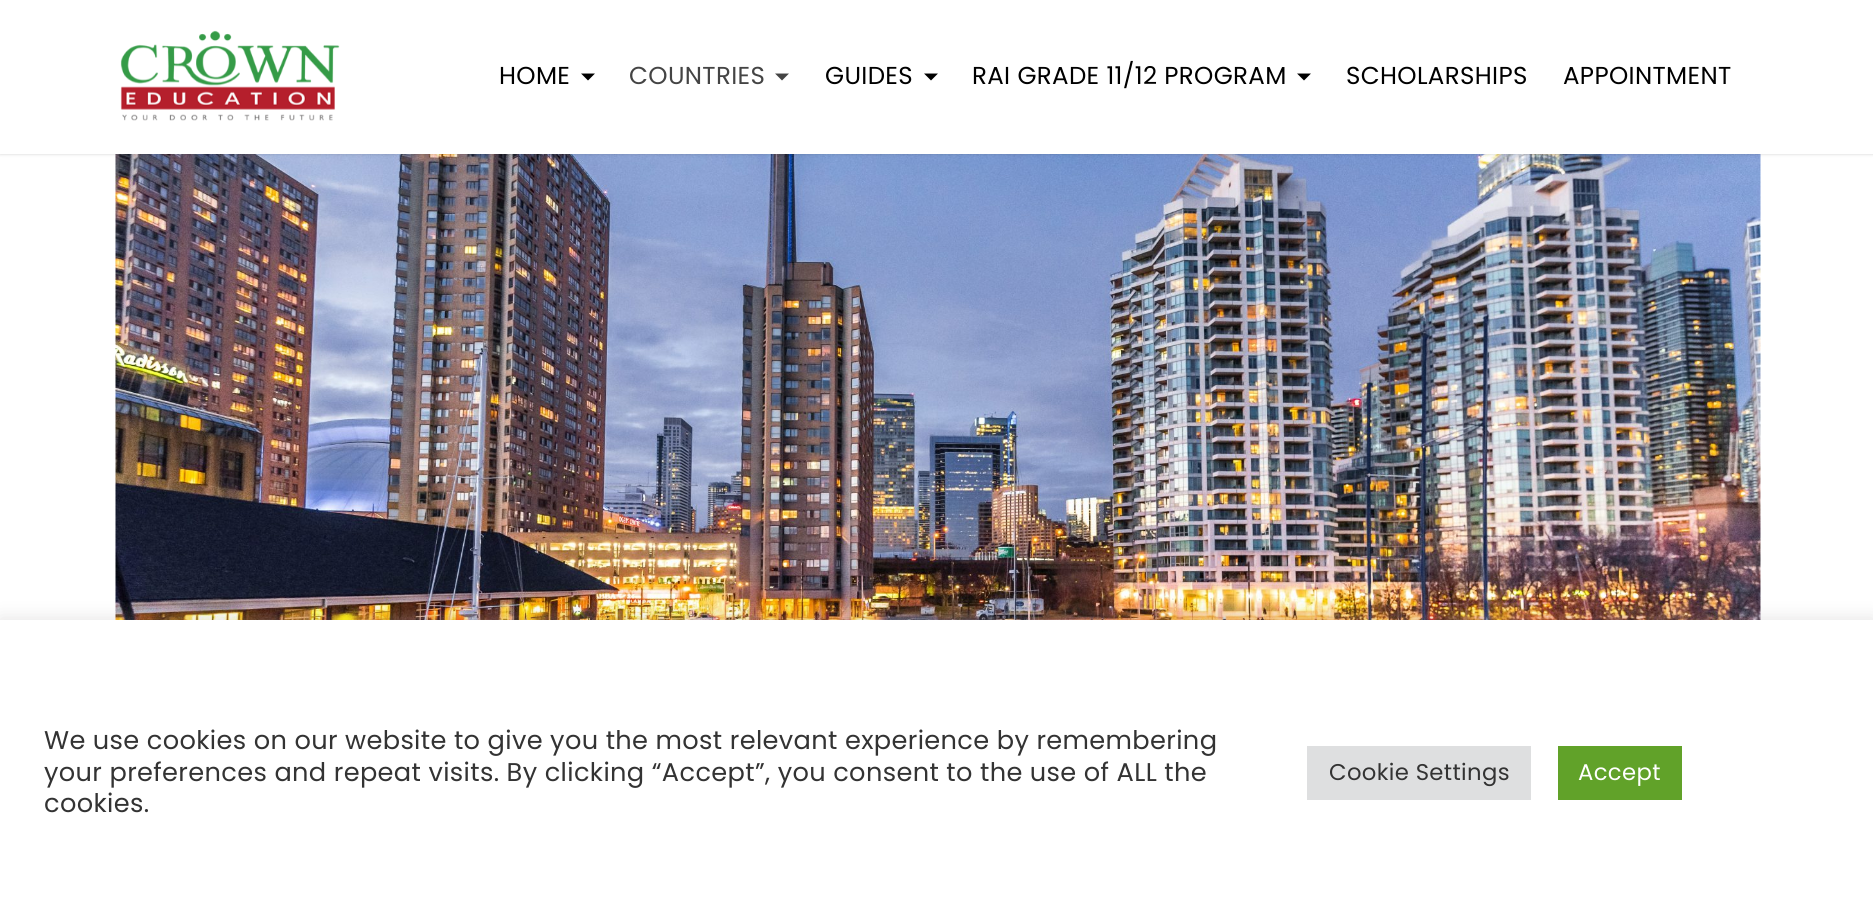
#include <cairo.h>
#include <math.h>
#include <stddef.h>


static void rgb(cairo_t *cr, int r, int g, int b)
{
	cairo_set_source_rgb(cr, r / 255.0, g / 255.0, b / 255.0);
}

static void face(cairo_t *cr, const char *family, double size, int italic, int bold)
{
	cairo_select_font_face(cr, family, italic ? CAIRO_FONT_SLANT_ITALIC : CAIRO_FONT_SLANT_NORMAL,
		bold ? CAIRO_FONT_WEIGHT_BOLD : CAIRO_FONT_WEIGHT_NORMAL);
	cairo_set_font_size(cr, size);
}

static void tracked(cairo_t *cr, double x, double y, const char *s, double letter, double word)
{
	cairo_move_to(cr, x, y);
	while (*s) {
		char ch[5] = {0};
		int n = 0;
		do ch[n++] = *s++; while ((*s & 0xC0) == 0x80);
		cairo_show_text(cr, ch);
		cairo_rel_move_to(cr, letter + word * (*ch == ' '), 0);
	}
}

static void rect(cairo_t *cr, double x, double y, double w, double h)
{
	cairo_rectangle(cr, x, y, w, h);
	cairo_fill(cr);
}

static void rrect(cairo_t *cr, double x, double y, double w, double h, double r)
{
	cairo_new_sub_path(cr);
	cairo_arc(cr, x + w - r, y + h - r, r, 0, M_PI / 2);
	cairo_arc(cr, x + r, y + h - r, r, M_PI / 2, M_PI);
	cairo_arc(cr, x + r, y + r, r, M_PI, 1.5 * M_PI);
	cairo_arc(cr, x + w - r, y + r, r, 1.5 * M_PI, 2 * M_PI);
	cairo_close_path(cr);
}

static void soft_shadow(cairo_t *cr, double x, double y, double w, double h, double r, double blur, double alpha)
{
	cairo_push_group_with_content(cr, CAIRO_CONTENT_ALPHA);
	cairo_set_operator(cr, CAIRO_OPERATOR_SOURCE);
	for (int i = 15; i >= -15 && fmin(w, h) + blur * i / 3 > 0; i -= 2) {
		double e = blur * i / 6;
		cairo_set_source_rgba(cr, 0, 0, 0, alpha * erfc((i - 1) / 8.5) / 2);
		rrect(cr, x - e, y - e, w + 2 * e, h + 2 * e, fmax(0, fmin(r + e + blur * .6, fmin(w, h) / 2 + e)));
		cairo_fill(cr);
	}
	cairo_pattern_t *soft = cairo_pop_group(cr);
	cairo_mask(cr, soft);
	cairo_pattern_destroy(soft);
}

static void image(cairo_t *cr, const char *path, double x, double y, double w, double h)
{
	cairo_surface_t *image = cairo_image_surface_create_from_png(path);
	cairo_save(cr);
	cairo_set_source_surface(cr, image, x, y);
	cairo_rectangle(cr, x, y, w, h);
	cairo_fill(cr);
	cairo_restore(cr);
	cairo_surface_destroy(image);
}

static void draw(cairo_t *cr) {
	rgb(cr, 255, 255, 255);
	cairo_paint(cr);
	image(cr, "image1.png", 115, 154, 1646, 466);
	rgb(cr, 23, 24, 26);
	soft_shadow(cr, 0, -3, 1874, 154, 0, 2.5, 1);
	rgb(cr, 255, 255, 255);
	rect(cr, 0, 0, 1873, 154);
	image(cr, "image0.png", 120, 30, 220, 91);
	face(cr, "Poppins", 24.5, 0, 0);
	rgb(cr, 0, 0, 0);
	tracked(cr, 499, 84, "HOME", 0.35, 0);
	cairo_new_path(cr);
	cairo_move_to(cr, 581, 73.5);
	cairo_line_to(cr, 595, 73.5);
	cairo_line_to(cr, 588, 80.5);
	cairo_close_path(cr);
	cairo_fill(cr);
	rgb(cr, 68, 68, 68);
	tracked(cr, 629, 84, "COUNTRIES", 0.35, 0);
	cairo_new_path(cr);
	cairo_move_to(cr, 775, 73.5);
	cairo_line_to(cr, 789, 73.5);
	cairo_line_to(cr, 782, 80.5);
	cairo_close_path(cr);
	cairo_fill(cr);
	rgb(cr, 0, 0, 0);
	tracked(cr, 825, 84, "GUIDES", 0.35, 0);
	cairo_new_path(cr);
	cairo_move_to(cr, 924, 73.5);
	cairo_line_to(cr, 938, 73.5);
	cairo_line_to(cr, 931, 80.5);
	cairo_close_path(cr);
	cairo_fill(cr);
	tracked(cr, 972, 84, "RAI GRADE 11/12 PROGRAM", 0.35, 0);
	cairo_new_path(cr);
	cairo_move_to(cr, 1297, 73.5);
	cairo_line_to(cr, 1311, 73.5);
	cairo_line_to(cr, 1304, 80.5);
	cairo_close_path(cr);
	cairo_fill(cr);
	tracked(cr, 1346, 84, "SCHOLARSHIPS", 0.35, 0);
	tracked(cr, 1563, 84, "APPOINTMENT", 0.35, 0);
	rgb(cr, 172, 171, 171);
	soft_shadow(cr, 0, 618, 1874, 304, 0, 9, 0.3);
	rgb(cr, 255, 255, 255);
	rect(cr, 0, 620, 1873, 303);
	face(cr, "Poppins", 25.65, 0, 0);
	rgb(cr, 51, 51, 51);
	tracked(cr, 44, 749, "We use cookies on our website to give you the most relevant experience by remembering", 0.35, 0);
	tracked(cr, 44, 781, "your preferences and repeat visits. By clicking “Accept”, you consent to the use of ALL the", 0.35, 0);
	tracked(cr, 44, 812, "cookies.", 0.35, 0);
	rgb(cr, 222, 223, 224);
	rect(cr, 1307, 746, 224, 54);
	face(cr, "Poppins", 22.75, 0, 0);
	rgb(cr, 51, 51, 51);
	tracked(cr, 1329, 780, "Cookie Settings", 0.35, 0);
	rgb(cr, 97, 162, 41);
	rect(cr, 1558, 746, 124, 54);
	rgb(cr, 255, 255, 255);
	tracked(cr, 1578, 780, "Accept", 0.35, 0);
}

int main(void) {
	cairo_surface_t *surface = cairo_image_surface_create(CAIRO_FORMAT_RGB24, 1873, 923);
	cairo_t *cr = cairo_create(surface);
	cairo_font_options_t *options = cairo_font_options_create();
	cairo_font_options_set_hint_metrics(options, CAIRO_HINT_METRICS_OFF);
	cairo_font_options_set_hint_style(options, CAIRO_HINT_STYLE_NONE);
	cairo_set_font_options(cr, options);
	cairo_set_miter_limit(cr, 4);
	draw(cr);
	cairo_surface_write_to_png(surface, "render.png");
	cairo_font_options_destroy(options);
	cairo_destroy(cr);
	cairo_surface_destroy(surface);
	return 0;
}
